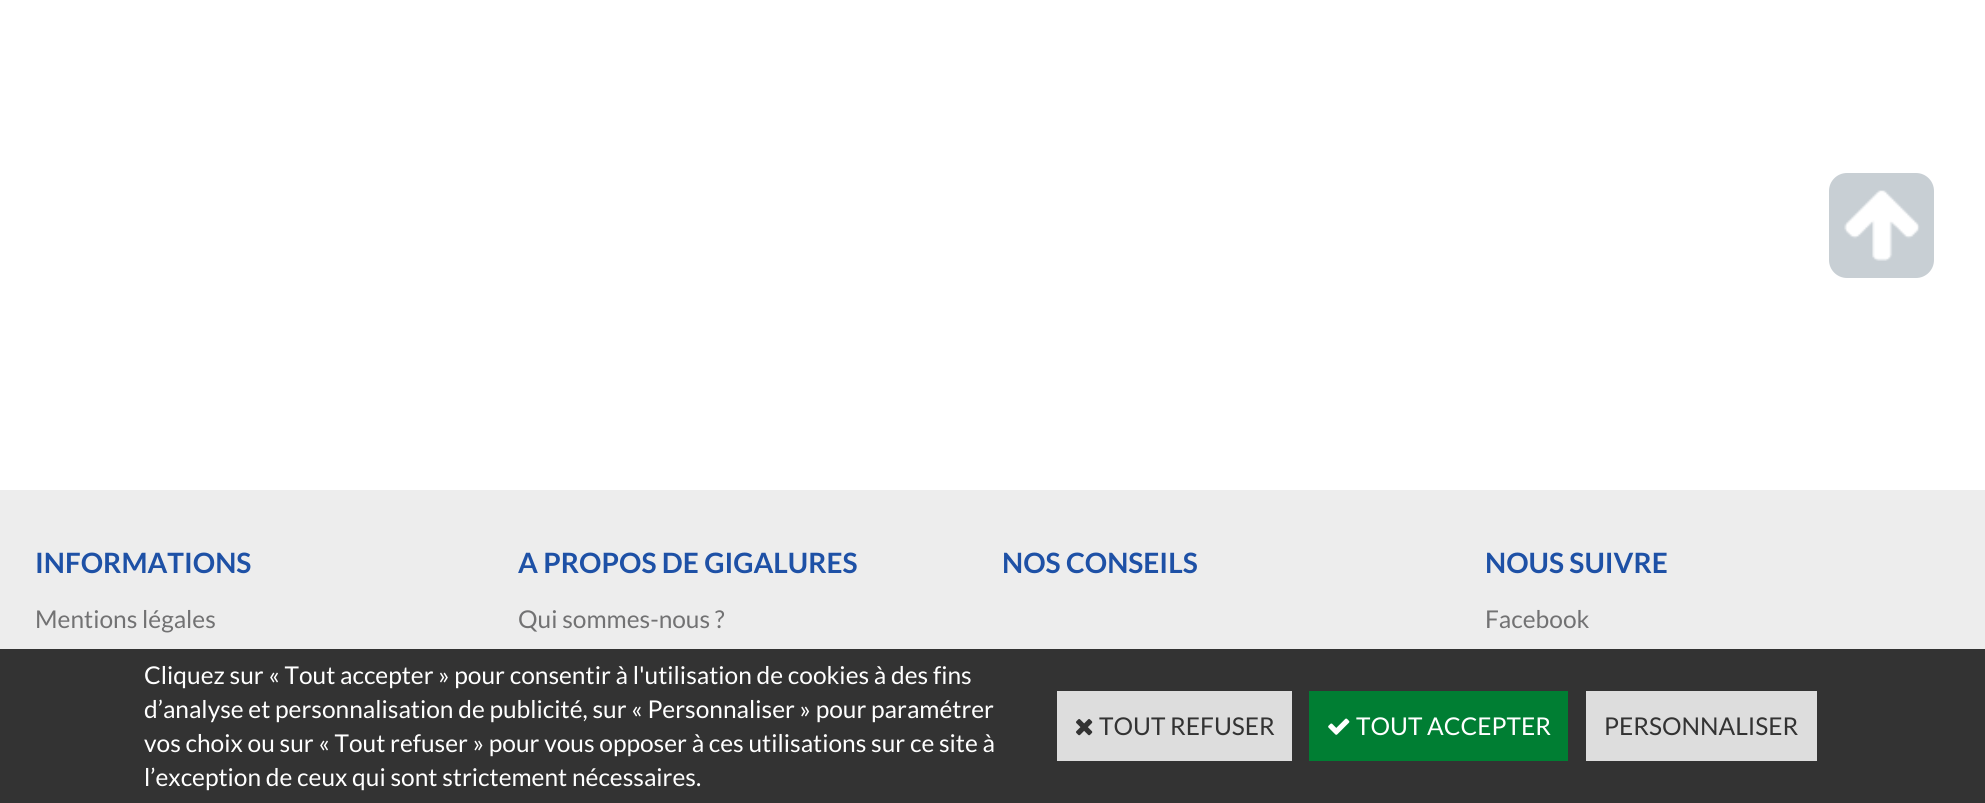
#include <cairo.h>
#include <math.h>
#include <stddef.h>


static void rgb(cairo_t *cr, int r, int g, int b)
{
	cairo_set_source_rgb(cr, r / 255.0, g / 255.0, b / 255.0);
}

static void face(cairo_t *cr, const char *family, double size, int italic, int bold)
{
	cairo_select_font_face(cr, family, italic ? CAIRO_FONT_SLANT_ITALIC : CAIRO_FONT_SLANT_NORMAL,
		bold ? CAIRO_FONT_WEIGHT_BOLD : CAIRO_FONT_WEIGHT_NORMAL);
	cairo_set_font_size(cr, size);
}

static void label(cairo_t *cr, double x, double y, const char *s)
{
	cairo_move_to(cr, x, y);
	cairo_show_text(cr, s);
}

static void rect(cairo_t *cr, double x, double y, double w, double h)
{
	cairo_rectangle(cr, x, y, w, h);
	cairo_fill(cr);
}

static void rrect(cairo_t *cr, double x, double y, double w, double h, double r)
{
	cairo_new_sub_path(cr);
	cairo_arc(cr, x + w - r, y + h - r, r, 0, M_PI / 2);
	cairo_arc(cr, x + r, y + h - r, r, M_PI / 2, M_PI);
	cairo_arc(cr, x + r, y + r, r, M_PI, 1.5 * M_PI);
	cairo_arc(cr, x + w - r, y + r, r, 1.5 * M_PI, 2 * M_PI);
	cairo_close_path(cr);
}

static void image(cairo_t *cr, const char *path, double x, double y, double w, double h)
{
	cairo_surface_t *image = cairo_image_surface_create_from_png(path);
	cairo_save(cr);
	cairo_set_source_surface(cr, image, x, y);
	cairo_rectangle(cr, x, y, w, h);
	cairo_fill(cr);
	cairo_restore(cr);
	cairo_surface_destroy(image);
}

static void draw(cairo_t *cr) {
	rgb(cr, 237, 237, 237);
	cairo_paint(cr);
	rgb(cr, 255, 255, 255);
	rect(cr, 0, 0, 1985, 490);
	rgb(cr, 200, 207, 212);
	rrect(cr, 1829, 173, 105, 105, 18);
	cairo_fill(cr);
	image(cr, "image0.png", 1844, 190, 76, 71);
	face(cr, "Lato", 28, 0, 1);
	rgb(cr, 30, 81, 166);
	label(cr, 35, 573, "INFORMATIONS");
	face(cr, "Lato", 24.5, 0, 0);
	rgb(cr, 114, 114, 115);
	label(cr, 35, 628, "Mentions légales");
	face(cr, "Lato", 28, 0, 1);
	rgb(cr, 30, 81, 166);
	label(cr, 518, 573, "A PROPOS DE GIGALURES");
	face(cr, "Lato", 24.5, 0, 0);
	rgb(cr, 114, 114, 115);
	label(cr, 518, 628, "Qui sommes-nous ?");
	face(cr, "Lato", 28, 0, 1);
	rgb(cr, 30, 81, 166);
	label(cr, 1002, 573, "NOS CONSEILS");
	label(cr, 1485, 573, "NOUS SUIVRE");
	face(cr, "Lato", 24.5, 0, 0);
	rgb(cr, 114, 114, 115);
	label(cr, 1485, 628, "Facebook");
	rgb(cr, 51, 51, 51);
	rect(cr, 0, 649, 1985, 154);
	rgb(cr, 255, 255, 255);
	label(cr, 144, 684, "Cliquez sur « Tout accepter » pour consentir à l'utilisation de cookies à des fins");
	label(cr, 144, 718, "d’analyse et personnalisation de publicité, sur « Personnaliser » pour paramétrer");
	label(cr, 144, 752, "vos choix ou sur « Tout refuser » pour vous opposer à ces utilisations sur ce site à");
	label(cr, 144, 786, "l’exception de ceux qui sont strictement nécessaires.");
	rgb(cr, 221, 221, 221);
	rect(cr, 1057, 691, 235, 70);
	image(cr, "image1.png", 1076, 719, 17, 17);
	rgb(cr, 51, 51, 51);
	label(cr, 1099, 735, "TOUT REFUSER");
	rgb(cr, 0, 126, 51);
	rect(cr, 1309, 691, 259, 70);
	image(cr, "image2.png", 1328, 718, 22, 17);
	rgb(cr, 255, 255, 255);
	label(cr, 1356, 735, "TOUT ACCEPTER");
	rgb(cr, 221, 221, 221);
	rect(cr, 1586, 691, 231, 70);
	rgb(cr, 51, 51, 51);
	label(cr, 1604, 735, "PERSONNALISER");
}

int main(void) {
	cairo_surface_t *surface = cairo_image_surface_create(CAIRO_FORMAT_RGB24, 1985, 803);
	cairo_t *cr = cairo_create(surface);
	cairo_font_options_t *options = cairo_font_options_create();
	cairo_font_options_set_hint_metrics(options, CAIRO_HINT_METRICS_OFF);
	cairo_font_options_set_hint_style(options, CAIRO_HINT_STYLE_NONE);
	cairo_set_font_options(cr, options);
	cairo_set_miter_limit(cr, 4);
	draw(cr);
	cairo_surface_write_to_png(surface, "render.png");
	cairo_font_options_destroy(options);
	cairo_destroy(cr);
	cairo_surface_destroy(surface);
	return 0;
}
